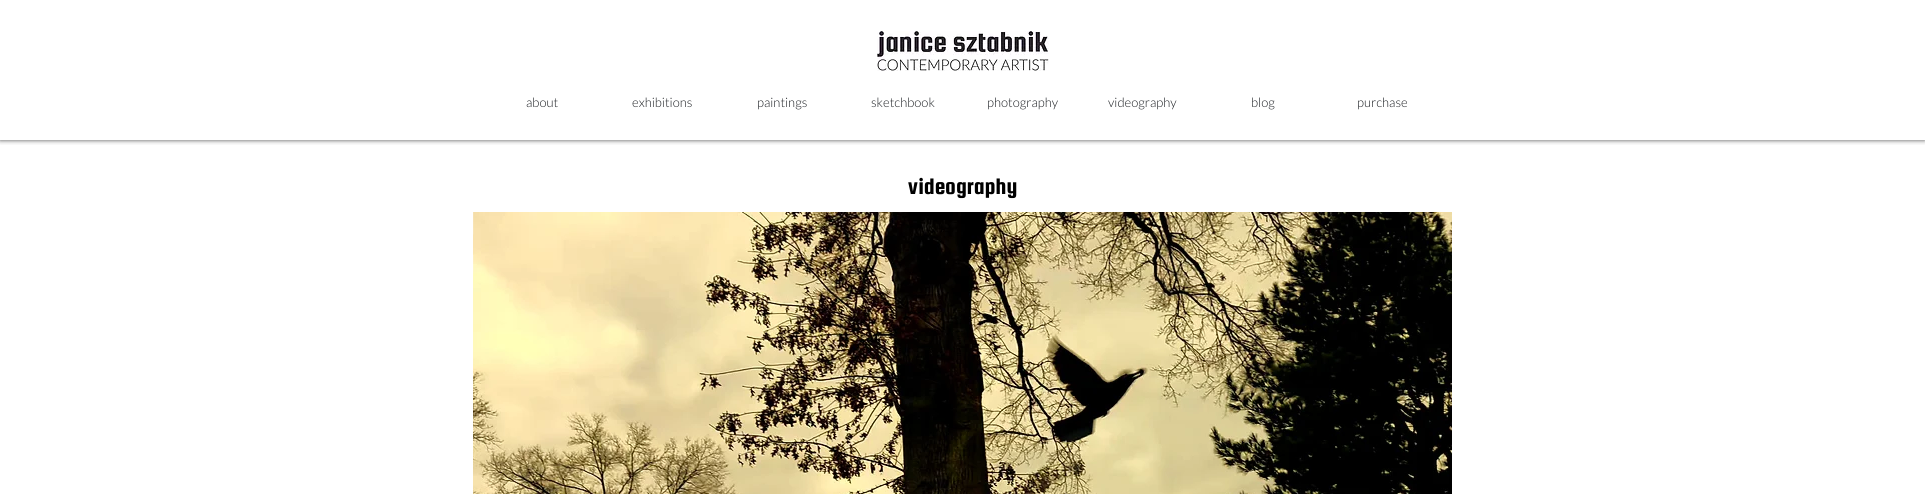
#include <cairo.h>
#include <math.h>
#include <stddef.h>


static void rgb(cairo_t *cr, int r, int g, int b)
{
	cairo_set_source_rgb(cr, r / 255.0, g / 255.0, b / 255.0);
}

static void face(cairo_t *cr, const char *family, double size, int italic, int bold)
{
	cairo_select_font_face(cr, family, italic ? CAIRO_FONT_SLANT_ITALIC : CAIRO_FONT_SLANT_NORMAL,
		bold ? CAIRO_FONT_WEIGHT_BOLD : CAIRO_FONT_WEIGHT_NORMAL);
	cairo_set_font_size(cr, size);
}

static void label(cairo_t *cr, double x, double y, const char *s)
{
	cairo_move_to(cr, x, y);
	cairo_show_text(cr, s);
}

static void rrect(cairo_t *cr, double x, double y, double w, double h, double r)
{
	cairo_new_sub_path(cr);
	cairo_arc(cr, x + w - r, y + h - r, r, 0, M_PI / 2);
	cairo_arc(cr, x + r, y + h - r, r, M_PI / 2, M_PI);
	cairo_arc(cr, x + r, y + r, r, M_PI, 1.5 * M_PI);
	cairo_arc(cr, x + w - r, y + r, r, 1.5 * M_PI, 2 * M_PI);
	cairo_close_path(cr);
}

static void soft_shadow(cairo_t *cr, double x, double y, double w, double h, double r, double blur, double alpha)
{
	cairo_push_group_with_content(cr, CAIRO_CONTENT_ALPHA);
	cairo_set_operator(cr, CAIRO_OPERATOR_SOURCE);
	for (int i = 15; i >= -15 && fmin(w, h) + blur * i / 3 > 0; i -= 2) {
		double e = blur * i / 6;
		cairo_set_source_rgba(cr, 0, 0, 0, alpha * erfc((i - 1) / 8.5) / 2);
		rrect(cr, x - e, y - e, w + 2 * e, h + 2 * e, fmax(0, fmin(r + e + blur * .6, fmin(w, h) / 2 + e)));
		cairo_fill(cr);
	}
	cairo_pattern_t *soft = cairo_pop_group(cr);
	cairo_mask(cr, soft);
	cairo_pattern_destroy(soft);
}

static void image(cairo_t *cr, const char *path, double x, double y, double w, double h)
{
	cairo_surface_t *image = cairo_image_surface_create_from_png(path);
	cairo_save(cr);
	cairo_set_source_surface(cr, image, x, y);
	cairo_rectangle(cr, x, y, w, h);
	cairo_fill(cr);
	cairo_restore(cr);
	cairo_surface_destroy(image);
}

static void draw(cairo_t *cr) {
	rgb(cr, 255, 255, 255);
	cairo_paint(cr);
	cairo_save(cr);
	cairo_rectangle(cr, 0, 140, 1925, 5);
	cairo_clip(cr);
	rgb(cr, 0, 0, 0);
	soft_shadow(cr, 0, 0, 1925, 140, 0, 2.5, 0.7);
	cairo_restore(cr);
	image(cr, "image0.png", 877, 31, 172, 40);
	face(cr, "Lato Light", 13, 0, 0);
	rgb(cr, 26, 29, 33);
	label(cr, 526, 107, "about");
	label(cr, 632, 107, "exhibitions");
	label(cr, 757, 107, "paintings");
	label(cr, 871, 107, "sketchbook");
	label(cr, 987, 107, "photography");
	label(cr, 1108, 107, "videography");
	label(cr, 1251, 107, "blog");
	label(cr, 1357, 107, "purchase");
	face(cr, "Squada One", 24, 0, 0);
	rgb(cr, 0, 0, 0);
	label(cr, 908, 194, "videography");
	image(cr, "image1.png", 473, 212, 979, 282);
}

int main(void) {
	cairo_surface_t *surface = cairo_image_surface_create(CAIRO_FORMAT_RGB24, 1925, 494);
	cairo_t *cr = cairo_create(surface);
	cairo_font_options_t *options = cairo_font_options_create();
	cairo_font_options_set_hint_metrics(options, CAIRO_HINT_METRICS_OFF);
	cairo_font_options_set_hint_style(options, CAIRO_HINT_STYLE_NONE);
	cairo_set_font_options(cr, options);
	cairo_set_miter_limit(cr, 4);
	draw(cr);
	cairo_surface_write_to_png(surface, "render.png");
	cairo_font_options_destroy(options);
	cairo_destroy(cr);
	cairo_surface_destroy(surface);
	return 0;
}
